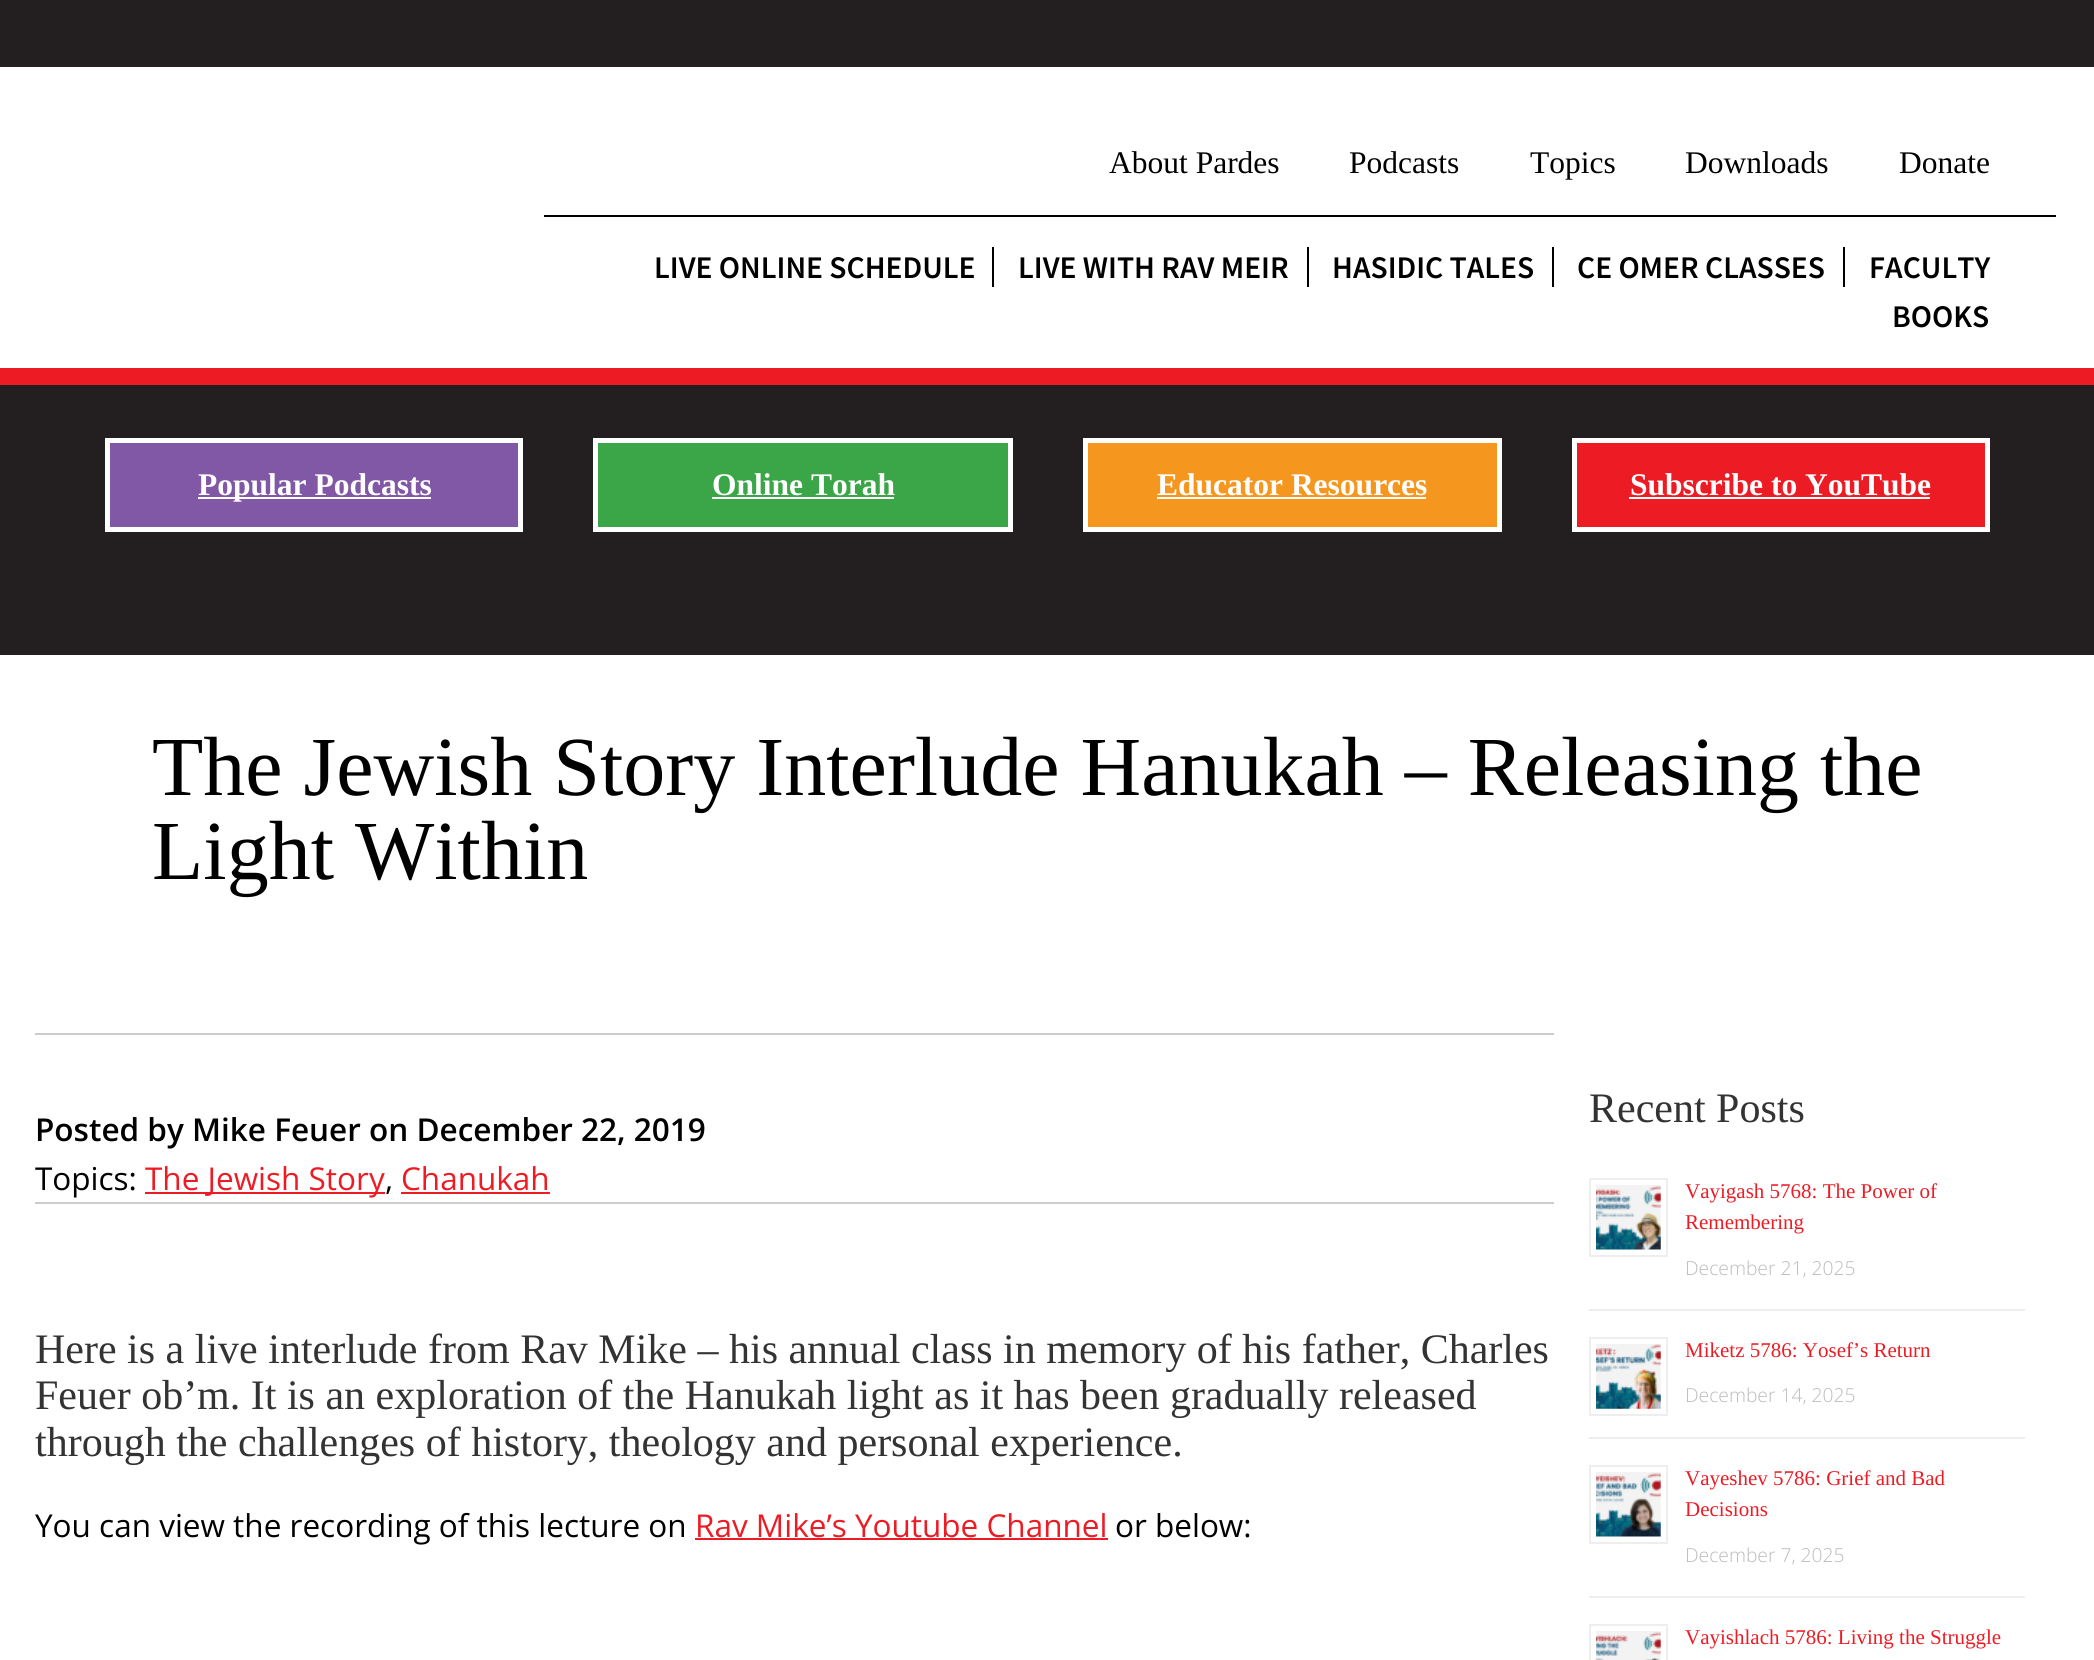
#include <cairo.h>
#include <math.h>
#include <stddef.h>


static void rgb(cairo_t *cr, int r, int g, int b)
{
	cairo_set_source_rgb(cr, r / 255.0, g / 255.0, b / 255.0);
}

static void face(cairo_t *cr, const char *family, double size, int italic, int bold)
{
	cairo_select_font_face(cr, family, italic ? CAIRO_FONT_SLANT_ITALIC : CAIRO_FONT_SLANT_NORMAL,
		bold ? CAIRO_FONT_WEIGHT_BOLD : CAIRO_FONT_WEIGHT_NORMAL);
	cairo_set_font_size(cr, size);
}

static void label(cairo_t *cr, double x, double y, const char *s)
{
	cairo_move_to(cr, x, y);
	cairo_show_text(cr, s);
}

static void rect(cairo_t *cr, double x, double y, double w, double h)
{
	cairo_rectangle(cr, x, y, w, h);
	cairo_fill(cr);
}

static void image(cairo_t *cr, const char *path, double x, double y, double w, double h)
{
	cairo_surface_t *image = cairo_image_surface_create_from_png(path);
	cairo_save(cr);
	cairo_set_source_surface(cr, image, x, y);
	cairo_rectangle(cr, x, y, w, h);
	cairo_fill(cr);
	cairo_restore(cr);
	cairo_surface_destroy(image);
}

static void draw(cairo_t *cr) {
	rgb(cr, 35, 31, 32);
	cairo_paint(cr);
	rgb(cr, 255, 255, 255);
	rect(cr, 0, 67, 2094, 301);
	rgb(cr, 237, 28, 36);
	rect(cr, 0, 368, 2094, 17);
	face(cr, "Liberation Serif", 31.5, 0, 0);
	rgb(cr, 0, 0, 0);
	label(cr, 1109, 173, "About Pardes");
	label(cr, 1349, 173, "Podcasts");
	label(cr, 1530, 173, "Topics");
	label(cr, 1685, 173, "Downloads");
	label(cr, 1899, 173, "Donate");
	rect(cr, 544, 215, 1512, 2);
	face(cr, "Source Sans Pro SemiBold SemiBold", 31.5, 0, 0);
	label(cr, 654, 278, "LIVE ONLINE SCHEDULE");
	rect(cr, 992, 247, 2, 40);
	label(cr, 1018, 278, "LIVE WITH RAV MEIR");
	rect(cr, 1307, 247, 2, 40);
	label(cr, 1332, 278, "HASIDIC TALES");
	rect(cr, 1552, 247, 2, 40);
	label(cr, 1577, 278, "CE OMER CLASSES");
	rect(cr, 1843, 247, 2, 40);
	label(cr, 1869, 278, "FACULTY");
	label(cr, 1892, 327, "BOOKS");
	rgb(cr, 129, 88, 165);
	cairo_rectangle(cr, 107.5, 440.5, 413, 89);
	cairo_fill_preserve(cr);
	rgb(cr, 255, 255, 255);
	cairo_set_line_width(cr, 5);
	cairo_stroke(cr);
	rect(cr, 198, 497, 233, 2);
	face(cr, "Liberation Serif", 31.5, 0, 1);
	label(cr, 198, 495, "Popular Podcasts");
	rgb(cr, 58, 166, 72);
	cairo_rectangle(cr, 595.5, 440.5, 415, 89);
	cairo_fill_preserve(cr);
	rgb(cr, 255, 255, 255);
	cairo_stroke(cr);
	label(cr, 712, 495, "Online Torah");
	rect(cr, 712, 497, 182, 2);
	rgb(cr, 245, 151, 30);
	cairo_rectangle(cr, 1085.5, 440.5, 414, 89);
	cairo_fill_preserve(cr);
	rgb(cr, 255, 255, 255);
	cairo_stroke(cr);
	label(cr, 1157, 495, "Educator Resources");
	rect(cr, 1157, 497, 269, 2);
	rgb(cr, 237, 28, 36);
	cairo_rectangle(cr, 1574.5, 440.5, 413, 89);
	cairo_fill_preserve(cr);
	rgb(cr, 255, 255, 255);
	cairo_stroke(cr);
	label(cr, 1630, 495, "Subscribe to YouTube");
	rect(cr, 1629, 497, 301, 2);
	rect(cr, 0, 655, 2094, 1005);
	face(cr, "Liberation Serif", 84, 0, 0);
	rgb(cr, 0, 0, 0);
	label(cr, 152, 795, "The Jewish Story Interlude Hanukah – Releasing the");
	label(cr, 152, 879, "Light Within");
	rgb(cr, 204, 204, 204);
	rect(cr, 35, 1033, 1519, 2);
	rect(cr, 35, 1202, 1519, 2);
	face(cr, "Open Sans SemiBold", 31.5, 0, 0);
	rgb(cr, 0, 0, 0);
	label(cr, 35, 1141, "Posted by Mike Feuer on December 22, 2019");
	face(cr, "Open Sans", 31.5, 0, 0);
	label(cr, 35, 1190, "Topics:");
	rgb(cr, 237, 28, 36);
	rect(cr, 145, 1192, 240, 2);
	label(cr, 145, 1190, "The Jewish Story");
	rgb(cr, 0, 0, 0);
	label(cr, 385, 1190, ",");
	rgb(cr, 237, 28, 36);
	label(cr, 401, 1190, "Chanukah");
	rect(cr, 401, 1192, 149, 2);
	face(cr, "Liberation Serif", 42, 0, 0);
	rgb(cr, 51, 51, 51);
	label(cr, 35, 1363, "Here is a live interlude from Rav Mike – his annual class in memory of his father, Charles");
	label(cr, 35, 1409, "Feuer ob’m. It is an exploration of the Hanukah light as it has been gradually released");
	label(cr, 35, 1456, "through the challenges of history, theology and personal experience.");
	face(cr, "Open Sans", 31.5, 0, 0);
	rgb(cr, 0, 0, 0);
	label(cr, 35, 1537, "You can view the recording of this lecture on");
	rgb(cr, 237, 28, 36);
	label(cr, 695, 1537, "Rav Mike’s Youtube Channel");
	rect(cr, 695, 1538, 413, 2);
	rgb(cr, 0, 0, 0);
	label(cr, 1115, 1537, "or below:");
	face(cr, "Liberation Serif", 42, 0, 0);
	rgb(cr, 51, 51, 51);
	label(cr, 1589, 1122, "Recent Posts");
	rgb(cr, 238, 238, 238);
	rect(cr, 1589, 1309, 436, 2);
	cairo_rectangle(cr, 1590, 1179, 77, 77);
	cairo_set_line_width(cr, 2);
	cairo_stroke(cr);
	image(cr, "image0.png", 1596, 1185, 65, 65);
	face(cr, "Liberation Serif", 21, 0, 0);
	rgb(cr, 237, 28, 36);
	label(cr, 1685, 1198, "Vayigash 5768: The Power of");
	label(cr, 1685, 1229, "Remembering");
	face(cr, "Open Sans Light", 19.25, 0, 0);
	rgb(cr, 187, 187, 187);
	label(cr, 1685, 1275, "December 21, 2025");
	rgb(cr, 238, 238, 238);
	rect(cr, 1589, 1437, 436, 2);
	cairo_rectangle(cr, 1590, 1338, 77, 77);
	cairo_stroke(cr);
	image(cr, "image1.png", 1596, 1344, 65, 65);
	face(cr, "Liberation Serif", 21, 0, 0);
	rgb(cr, 237, 28, 36);
	label(cr, 1685, 1357, "Miketz 5786: Yosef’s Return");
	face(cr, "Open Sans Light", 19.25, 0, 0);
	rgb(cr, 187, 187, 187);
	label(cr, 1685, 1402, "December 14, 2025");
	rgb(cr, 238, 238, 238);
	rect(cr, 1589, 1596, 436, 2);
	cairo_rectangle(cr, 1590, 1466, 77, 77);
	cairo_stroke(cr);
	image(cr, "image2.png", 1596, 1472, 65, 65);
	face(cr, "Liberation Serif", 21, 0, 0);
	rgb(cr, 237, 28, 36);
	label(cr, 1685, 1485, "Vayeshev 5786: Grief and Bad");
	label(cr, 1685, 1516, "Decisions");
	face(cr, "Open Sans Light", 19.25, 0, 0);
	rgb(cr, 187, 187, 187);
	label(cr, 1685, 1562, "December 7, 2025");
	cairo_rectangle(cr, 1590, 1625, 77, 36);
	rgb(cr, 238, 238, 238);
	cairo_stroke(cr);
	image(cr, "image3.png", 1596, 1631, 65, 29);
	face(cr, "Liberation Serif", 21, 0, 0);
	rgb(cr, 237, 28, 36);
	label(cr, 1685, 1644, "Vayishlach 5786: Living the Struggle");
}

int main(void) {
	cairo_surface_t *surface = cairo_image_surface_create(CAIRO_FORMAT_RGB24, 2094, 1660);
	cairo_t *cr = cairo_create(surface);
	cairo_font_options_t *options = cairo_font_options_create();
	cairo_font_options_set_hint_metrics(options, CAIRO_HINT_METRICS_OFF);
	cairo_font_options_set_hint_style(options, CAIRO_HINT_STYLE_NONE);
	cairo_set_font_options(cr, options);
	cairo_set_miter_limit(cr, 4);
	draw(cr);
	cairo_surface_write_to_png(surface, "render.png");
	cairo_font_options_destroy(options);
	cairo_destroy(cr);
	cairo_surface_destroy(surface);
	return 0;
}
